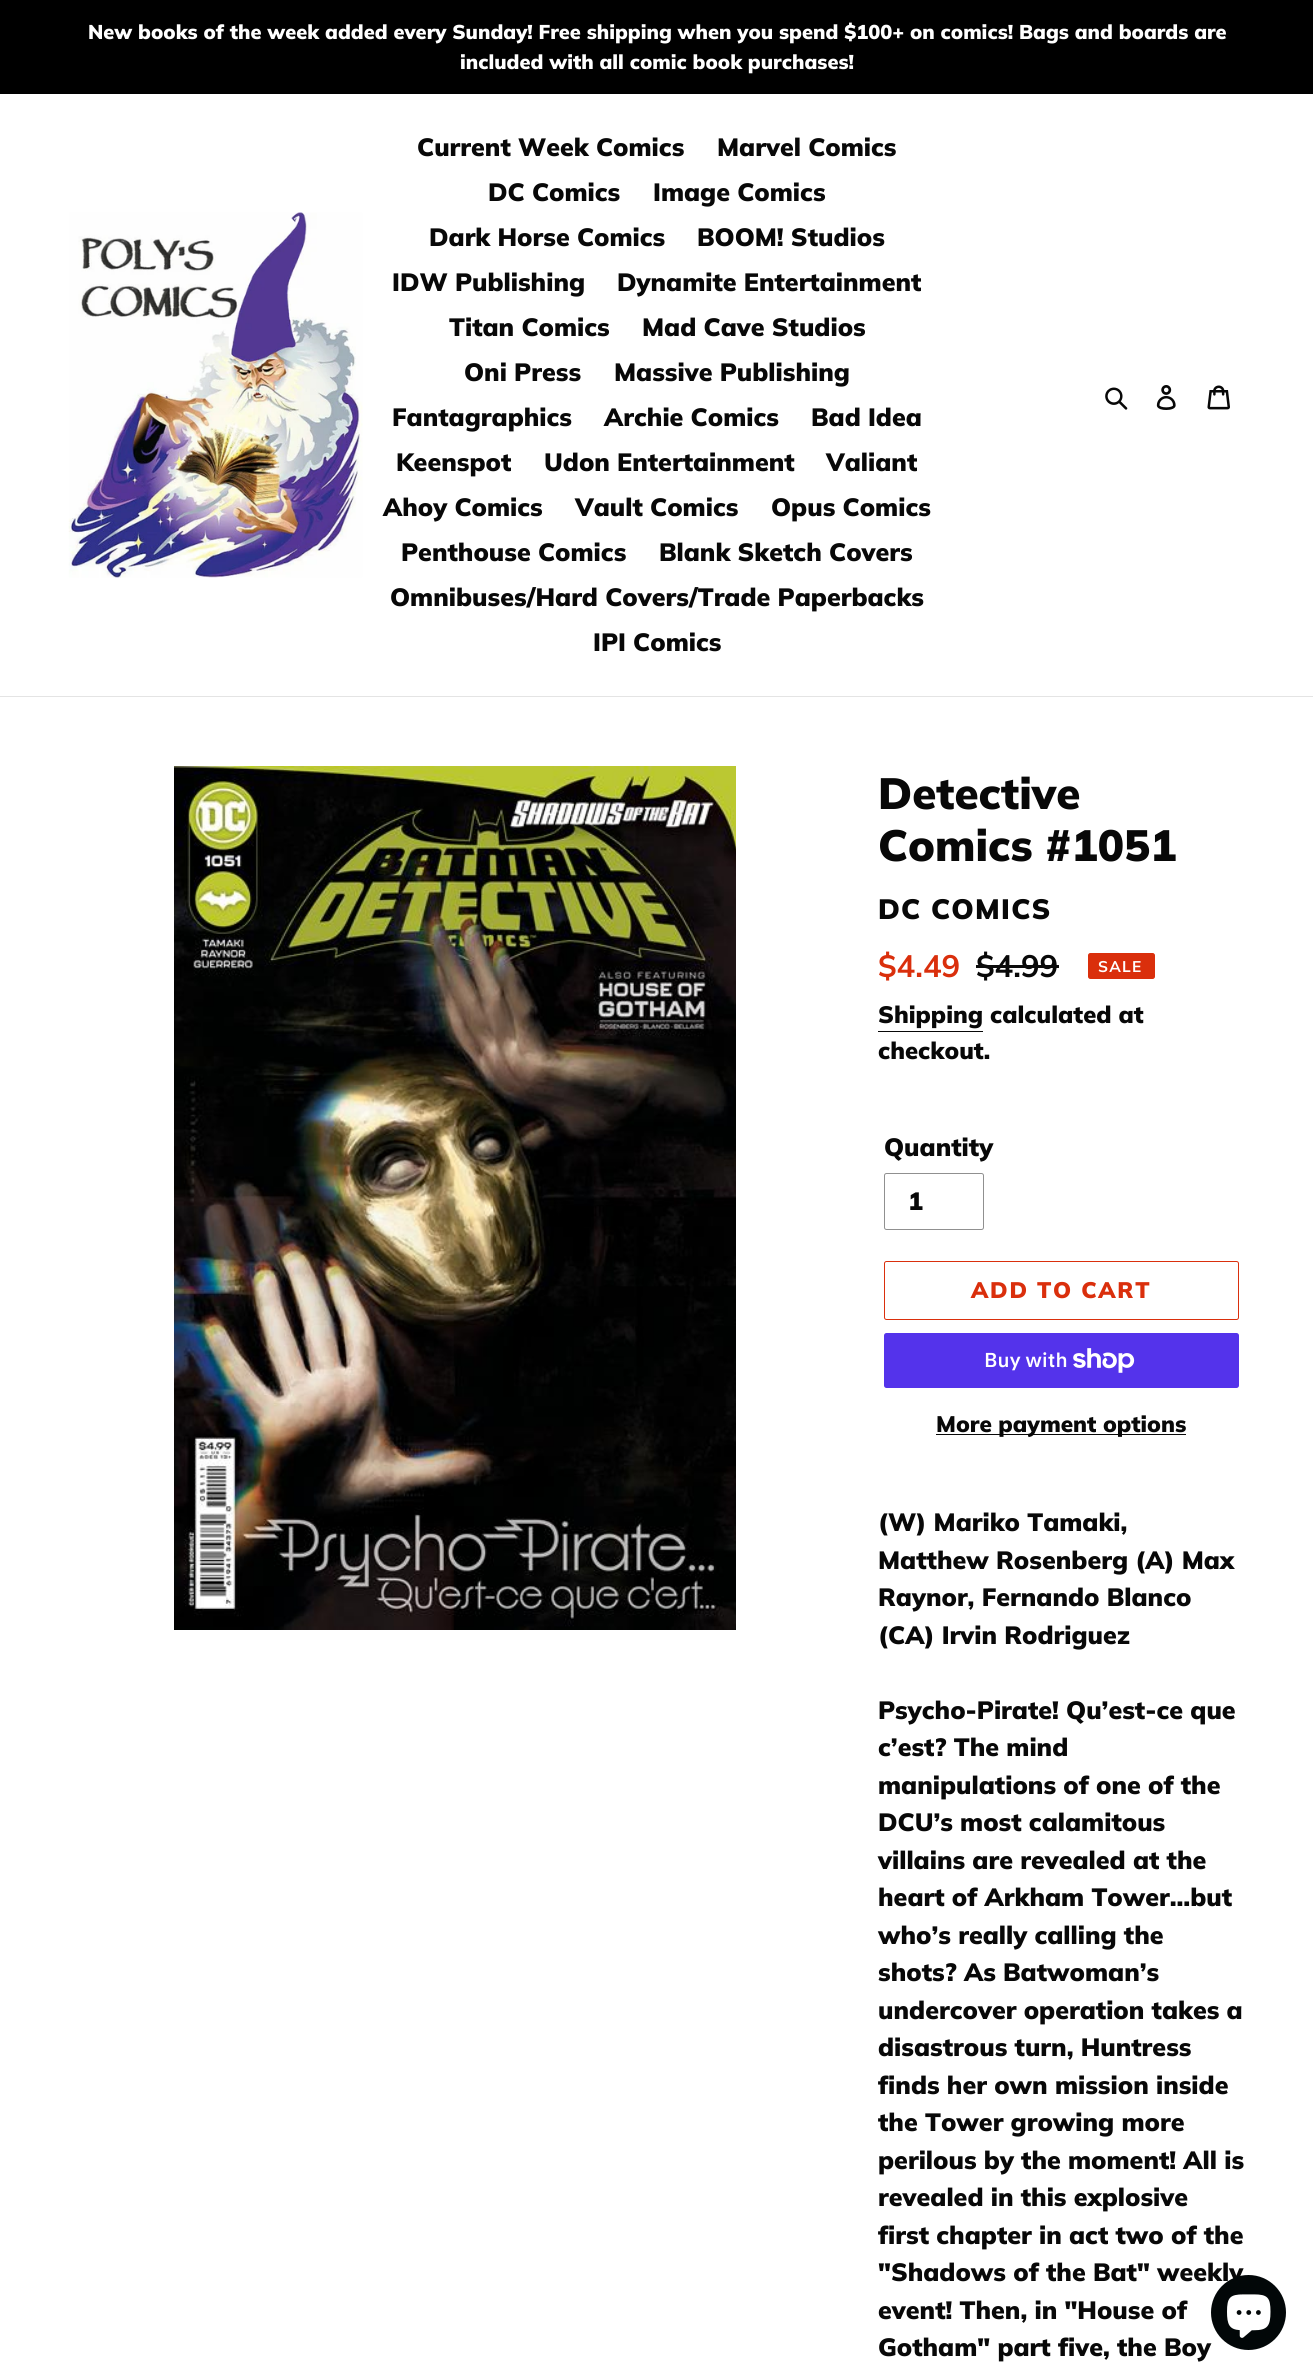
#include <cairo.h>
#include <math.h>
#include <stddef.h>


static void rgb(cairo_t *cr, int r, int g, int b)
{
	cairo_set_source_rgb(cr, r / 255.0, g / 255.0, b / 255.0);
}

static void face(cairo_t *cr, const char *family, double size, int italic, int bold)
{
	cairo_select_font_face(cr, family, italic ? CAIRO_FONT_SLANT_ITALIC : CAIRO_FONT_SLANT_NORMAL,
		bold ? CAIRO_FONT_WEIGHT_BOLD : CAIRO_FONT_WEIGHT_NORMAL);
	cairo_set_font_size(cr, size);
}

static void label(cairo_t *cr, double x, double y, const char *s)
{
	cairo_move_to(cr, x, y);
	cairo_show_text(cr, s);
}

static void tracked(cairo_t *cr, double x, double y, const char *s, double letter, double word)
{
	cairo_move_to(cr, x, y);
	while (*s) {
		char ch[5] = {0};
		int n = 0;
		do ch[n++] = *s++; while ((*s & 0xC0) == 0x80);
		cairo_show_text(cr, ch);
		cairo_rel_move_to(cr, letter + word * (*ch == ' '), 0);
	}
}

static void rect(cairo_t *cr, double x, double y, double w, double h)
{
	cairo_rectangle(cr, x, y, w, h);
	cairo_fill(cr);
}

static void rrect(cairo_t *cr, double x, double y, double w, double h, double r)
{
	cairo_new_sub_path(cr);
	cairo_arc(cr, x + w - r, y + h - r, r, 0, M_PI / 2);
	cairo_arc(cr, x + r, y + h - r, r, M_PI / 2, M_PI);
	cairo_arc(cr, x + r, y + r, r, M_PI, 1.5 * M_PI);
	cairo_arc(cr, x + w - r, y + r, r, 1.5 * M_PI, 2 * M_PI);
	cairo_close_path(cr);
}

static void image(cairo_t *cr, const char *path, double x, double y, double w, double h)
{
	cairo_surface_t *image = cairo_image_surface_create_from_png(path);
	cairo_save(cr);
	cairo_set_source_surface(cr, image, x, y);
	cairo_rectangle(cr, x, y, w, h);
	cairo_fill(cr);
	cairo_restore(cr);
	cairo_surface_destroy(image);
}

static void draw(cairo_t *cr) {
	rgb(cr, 255, 255, 255);
	cairo_paint(cr);
	rgb(cr, 0, 0, 0);
	rect(cr, 0, 0, 1313, 94);
	face(cr, "Muli Black", 20, 0, 0);
	rgb(cr, 255, 255, 255);
	label(cr, 88, 39, "New books of the week added every Sunday! Free shipping when you spend $100+ on comics! Bags and boards are");
	label(cr, 460, 69, "included with all comic book purchases!");
	rgb(cr, 228, 228, 228);
	rect(cr, 0, 696, 1313, 1);
	image(cr, "image0.png", 68, 212, 295, 366);
	face(cr, "Muli Black", 25, 0, 0);
	rgb(cr, 8, 8, 8);
	label(cr, 417, 156, "Current Week Comics");
	label(cr, 717, 156, "Marvel Comics");
	label(cr, 488, 201, "DC Comics");
	label(cr, 653, 201, "Image Comics");
	label(cr, 429, 246, "Dark Horse Comics");
	label(cr, 697, 246, "BOOM! Studios");
	label(cr, 392, 291, "IDW Publishing");
	label(cr, 617, 291, "Dynamite Entertainment");
	label(cr, 449, 336, "Titan Comics");
	label(cr, 642, 336, "Mad Cave Studios");
	label(cr, 464, 381, "Oni Press");
	label(cr, 614, 381, "Massive Publishing");
	label(cr, 392, 426, "Fantagraphics");
	label(cr, 604, 426, "Archie Comics");
	label(cr, 811, 426, "Bad Idea");
	label(cr, 396, 471, "Keenspot");
	label(cr, 544, 471, "Udon Entertainment");
	label(cr, 826, 471, "Valiant");
	label(cr, 383, 516, "Ahoy Comics");
	label(cr, 575, 516, "Vault Comics");
	label(cr, 771, 516, "Opus Comics");
	label(cr, 401, 561, "Penthouse Comics");
	label(cr, 659, 561, "Blank Sketch Covers");
	label(cr, 390, 606, "Omnibuses/Hard Covers/Trade Paperbacks");
	label(cr, 593, 651, "IPI Comics");
	image(cr, "image1.png", 1105, 387, 23, 23);
	image(cr, "image2.png", 1156, 385, 20, 25);
	image(cr, "image3.png", 1207, 385, 23, 25);
	image(cr, "image4.png", 174, 766, 562, 864);
	face(cr, "Muli Black", 43.75, 0, 0);
	label(cr, 878, 809, "Detective");
	label(cr, 878, 861, "Comics #1051");
	face(cr, "Muli Black", 28, 0, 0);
	tracked(cr, 878, 919, "DC COMICS", 1.25, 0);
	face(cr, "Muli", 31, 0, 1);
	rgb(cr, 218, 47, 12);
	label(cr, 878, 977, "$4.49");
	rgb(cr, 8, 8, 8);
	label(cr, 976, 977, "$4.99");
	rgb(cr, 11, 11, 11);
	rect(cr, 976, 965, 83, 3);
	rgb(cr, 218, 47, 12);
	rrect(cr, 1088.5, 953.5, 66, 25, 2);
	cairo_fill_preserve(cr);
	cairo_set_line_width(cr, 1);
	cairo_stroke(cr);
	face(cr, "Muli", 15.5, 0, 1);
	rgb(cr, 255, 255, 255);
	tracked(cr, 1098, 972, "SALE", 1.25, 0);
	face(cr, "Muli Black", 23.75, 0, 0);
	rgb(cr, 8, 8, 8);
	label(cr, 878, 1023, "Shipping");
	rect(cr, 878, 1031, 105, 1);
	label(cr, 990, 1023, "calculated at");
	label(cr, 878, 1059, "checkout.");
	face(cr, "Muli Black", 25, 0, 0);
	label(cr, 884, 1156, "Quantity");
	rrect(cr, 884.5, 1173.5, 99, 56, 2);
	rgb(cr, 144, 144, 144);
	cairo_stroke(cr);
	rgb(cr, 8, 8, 8);
	label(cr, 908, 1210, "1");
	rrect(cr, 884.5, 1261.5, 354, 58, 2);
	rgb(cr, 218, 47, 12);
	cairo_stroke(cr);
	face(cr, "Muli Black", 22.5, 0, 0);
	tracked(cr, 971, 1298, "ADD TO CART", 1.75, 0);
	rgb(cr, 84, 51, 235);
	rrect(cr, 884, 1333, 355, 55, 2.5);
	cairo_fill(cr);
	face(cr, "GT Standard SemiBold", 20, 0, 0);
	rgb(cr, 255, 255, 255);
	label(cr, 984, 1367, "Buy with");
	image(cr, "image5.png", 1073, 1348, 62, 25);
	rgb(cr, 8, 8, 8);
	rect(cr, 936, 1434, 250, 1);
	face(cr, "Muli Black", 22.5, 0, 0);
	label(cr, 936, 1432, "More payment options");
	face(cr, "Muli Black", 25, 0, 0);
	label(cr, 878, 1531, "(W) Mariko Tamaki,");
	label(cr, 878, 1569, "Matthew Rosenberg (A) Max");
	label(cr, 878, 1606, "Raynor, Fernando Blanco");
	label(cr, 878, 1644, "(CA) Irvin Rodriguez");
	label(cr, 878, 1719, "Psycho-Pirate! Qu’est-ce que");
	label(cr, 878, 1756, "c’est? The mind");
	label(cr, 878, 1794, "manipulations of one of the");
	label(cr, 878, 1831, "DCU’s most calamitous");
	label(cr, 878, 1869, "villains are revealed at the");
	label(cr, 878, 1906, "heart of Arkham Tower…but");
	label(cr, 878, 1944, "who’s really calling the");
	label(cr, 878, 1981, "shots? As Batwoman’s");
	label(cr, 878, 2019, "undercover operation takes a");
	label(cr, 878, 2056, "disastrous turn, Huntress");
	label(cr, 878, 2094, "finds her own mission inside");
	label(cr, 878, 2131, "the Tower growing more");
	label(cr, 878, 2169, "perilous by the moment! All is");
	label(cr, 878, 2206, "revealed in this explosive");
	label(cr, 878, 2244, "first chapter in act two of the");
	label(cr, 878, 2281, "\"Shadows of the Bat\" weekly");
	label(cr, 878, 2319, "event! Then, in \"House of");
	label(cr, 878, 2356, "Gotham\" part five, the Boy");
	rgb(cr, 2, 7, 8);
	cairo_new_path(cr);
	cairo_arc(cr, 1248.5, 2312.5, 37.5, 0, 2 * M_PI);
	cairo_fill(cr);
	image(cr, "image6.png", 1227, 2294, 44, 44);
}

int main(void) {
	cairo_surface_t *surface = cairo_image_surface_create(CAIRO_FORMAT_RGB24, 1313, 2376);
	cairo_t *cr = cairo_create(surface);
	cairo_font_options_t *options = cairo_font_options_create();
	cairo_font_options_set_hint_metrics(options, CAIRO_HINT_METRICS_OFF);
	cairo_font_options_set_hint_style(options, CAIRO_HINT_STYLE_NONE);
	cairo_set_font_options(cr, options);
	cairo_set_miter_limit(cr, 4);
	draw(cr);
	cairo_surface_write_to_png(surface, "render.png");
	cairo_font_options_destroy(options);
	cairo_destroy(cr);
	cairo_surface_destroy(surface);
	return 0;
}
